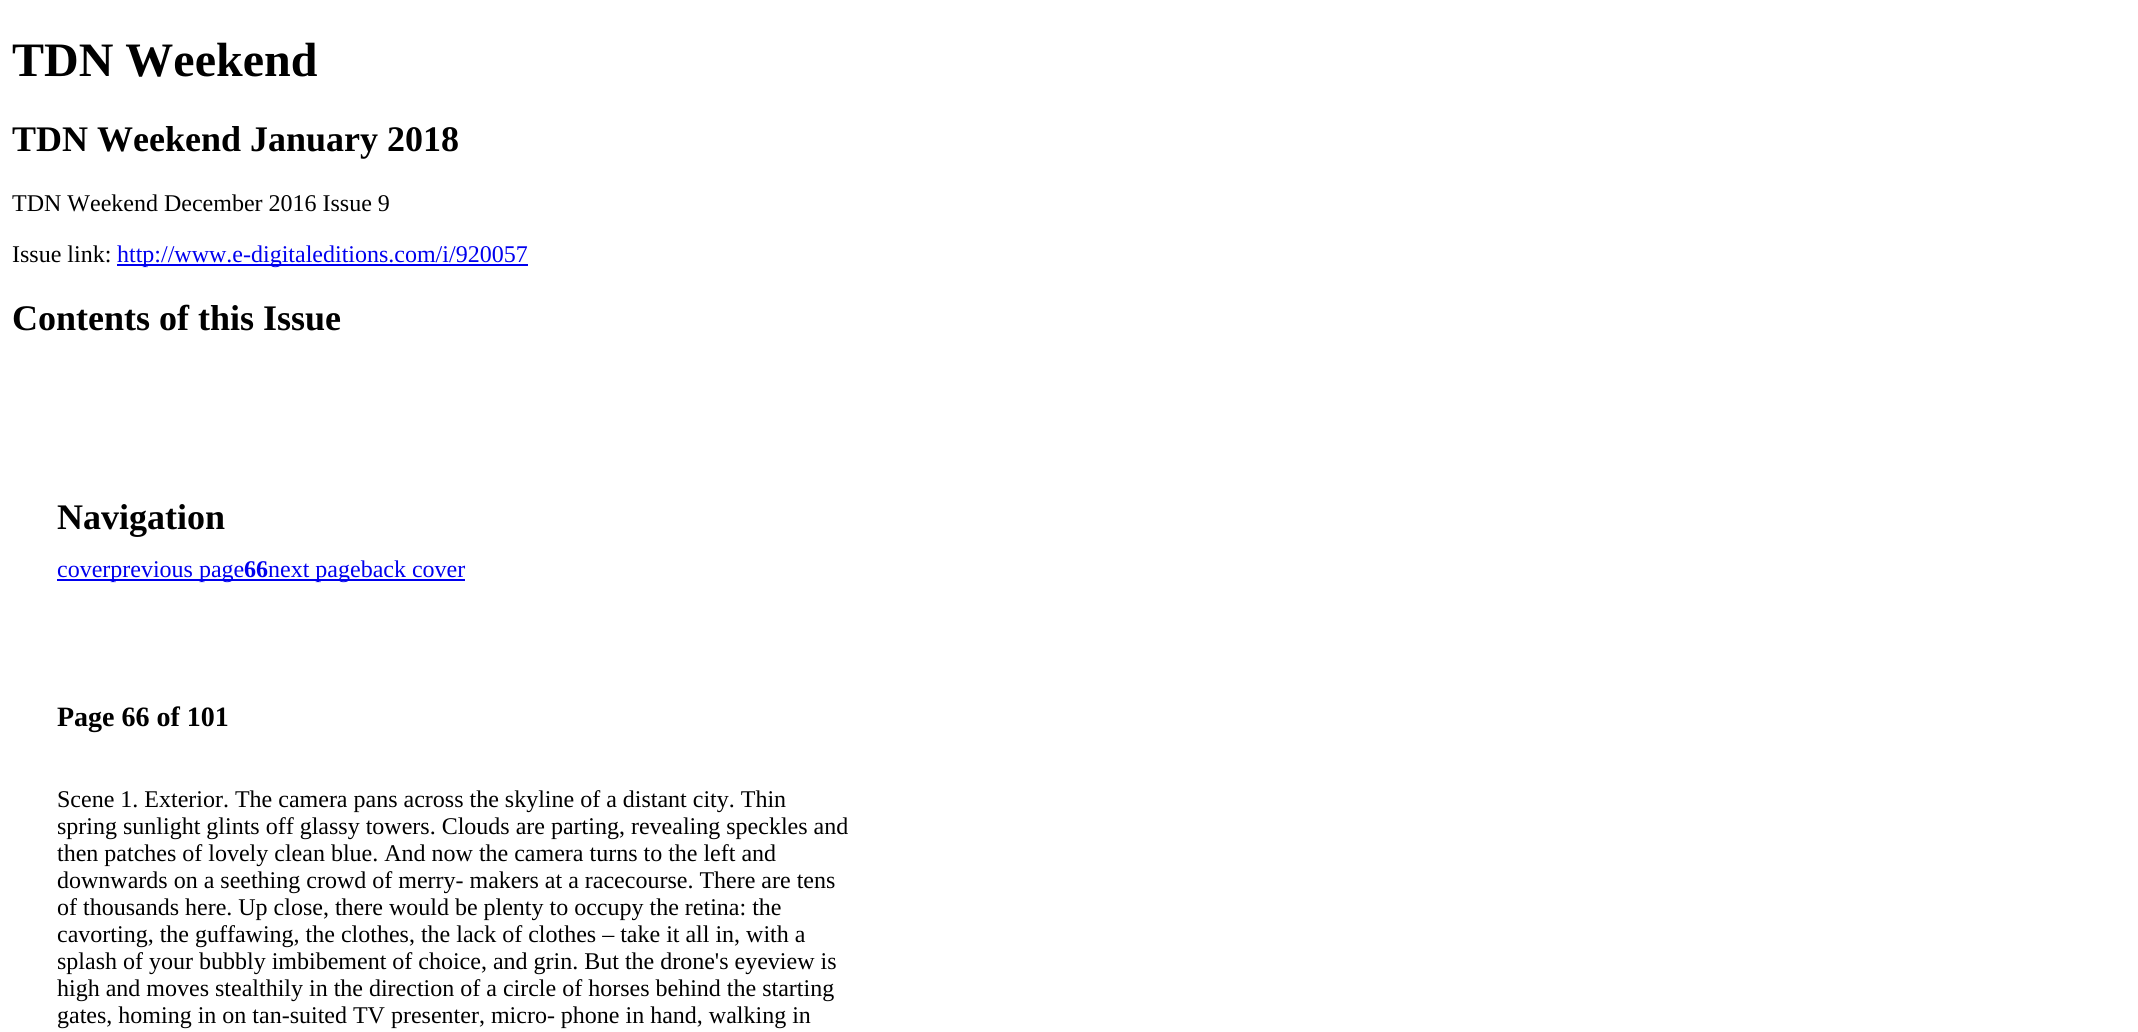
#include <cairo.h>
#include <math.h>
#include <stddef.h>


static void rgb(cairo_t *cr, int r, int g, int b)
{
	cairo_set_source_rgb(cr, r / 255.0, g / 255.0, b / 255.0);
}

static void face(cairo_t *cr, const char *family, double size, int italic, int bold)
{
	cairo_select_font_face(cr, family, italic ? CAIRO_FONT_SLANT_ITALIC : CAIRO_FONT_SLANT_NORMAL,
		bold ? CAIRO_FONT_WEIGHT_BOLD : CAIRO_FONT_WEIGHT_NORMAL);
	cairo_set_font_size(cr, size);
}

static void label(cairo_t *cr, double x, double y, const char *s)
{
	cairo_move_to(cr, x, y);
	cairo_show_text(cr, s);
}

static void rect(cairo_t *cr, double x, double y, double w, double h)
{
	cairo_rectangle(cr, x, y, w, h);
	cairo_fill(cr);
}

static void draw(cairo_t *cr) {
	rgb(cr, 255, 255, 255);
	cairo_paint(cr);
	face(cr, "Liberation Serif", 48, 0, 1);
	rgb(cr, 0, 0, 0);
	label(cr, 12, 76, "TDN Weekend");
	face(cr, "Liberation Serif", 36, 0, 1);
	label(cr, 12, 151, "TDN Weekend January 2018");
	face(cr, "Liberation Serif", 24, 0, 0);
	label(cr, 12, 211, "TDN Weekend December 2016 Issue 9");
	label(cr, 12, 262, "Issue link:");
	rgb(cr, 0, 0, 238);
	rect(cr, 117, 264, 411, 2);
	label(cr, 117, 262, "http://www.e-digitaleditions.com/i/920057");
	face(cr, "Liberation Serif", 36, 0, 1);
	rgb(cr, 0, 0, 0);
	label(cr, 12, 330, "Contents of this Issue");
	label(cr, 57, 529, "Navigation");
	rgb(cr, 0, 0, 238);
	rect(cr, 57, 579, 408, 2);
	face(cr, "Liberation Serif", 24, 0, 0);
	label(cr, 57, 577, "coverprevious page");
	face(cr, "Liberation Serif", 24, 0, 1);
	label(cr, 244, 577, "66");
	face(cr, "Liberation Serif", 24, 0, 0);
	label(cr, 268, 577, "next pageback cover");
	face(cr, "Liberation Serif", 28, 0, 1);
	rgb(cr, 0, 0, 0);
	label(cr, 57, 726, "Page 66 of 101");
	face(cr, "Liberation Serif", 24, 0, 0);
	label(cr, 57, 807, "Scene 1. Exterior. The camera pans across the skyline of a distant city. Thin");
	label(cr, 57, 834, "spring sunlight glints off glassy towers. Clouds are parting, revealing speckles and");
	label(cr, 57, 861, "then patches of lovely clean blue. And now the camera turns to the left and");
	label(cr, 57, 888, "downwards on a seething crowd of merry- makers at a racecourse. There are tens");
	label(cr, 57, 915, "of thousands here. Up close, there would be plenty to occupy the retina: the");
	label(cr, 57, 942, "cavorting, the guffawing, the clothes, the lack of clothes – take it all in, with a");
	label(cr, 57, 969, "splash of your bubbly imbibement of choice, and grin. But the drone's eyeview is");
	label(cr, 57, 996, "high and moves stealthily in the direction of a circle of horses behind the starting");
	label(cr, 57, 1023, "gates, homing in on tan-suited TV presenter, micro- phone in hand, walking in");
}

int main(void) {
	cairo_surface_t *surface = cairo_image_surface_create(CAIRO_FORMAT_RGB24, 2138, 1032);
	cairo_t *cr = cairo_create(surface);
	cairo_font_options_t *options = cairo_font_options_create();
	cairo_font_options_set_hint_metrics(options, CAIRO_HINT_METRICS_OFF);
	cairo_font_options_set_hint_style(options, CAIRO_HINT_STYLE_NONE);
	cairo_set_font_options(cr, options);
	cairo_set_miter_limit(cr, 4);
	draw(cr);
	cairo_surface_write_to_png(surface, "render.png");
	cairo_font_options_destroy(options);
	cairo_destroy(cr);
	cairo_surface_destroy(surface);
	return 0;
}
